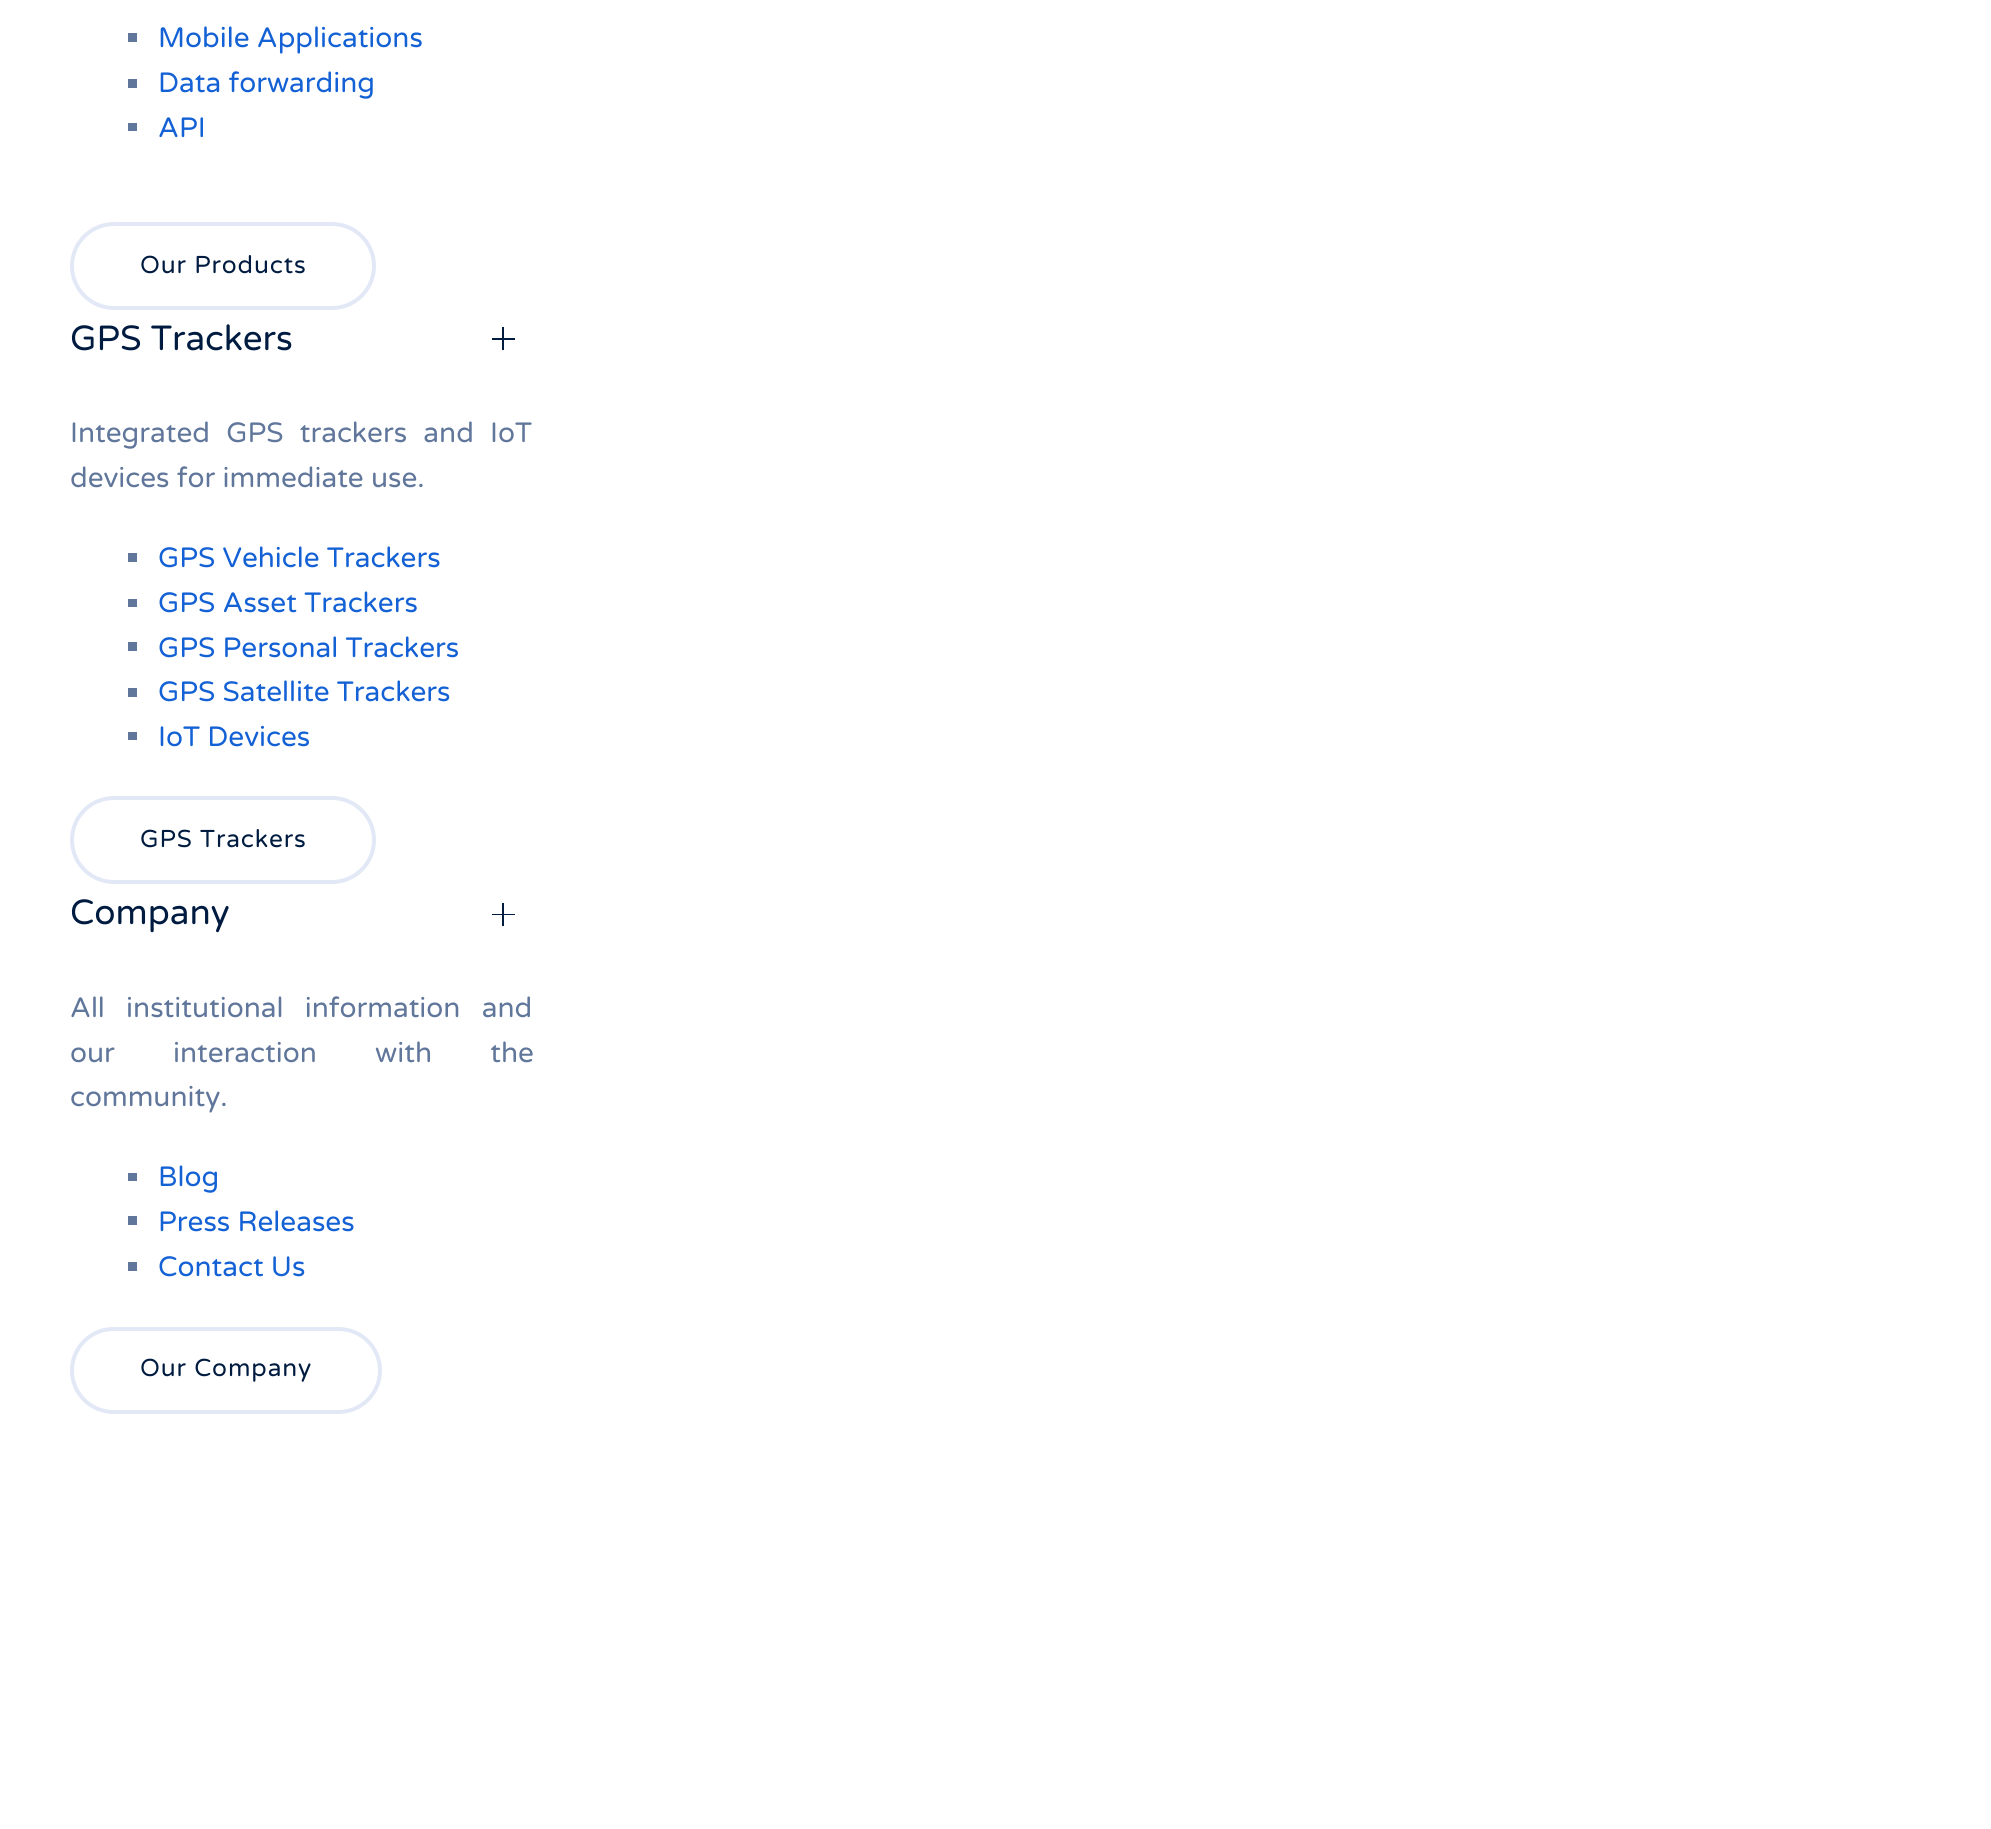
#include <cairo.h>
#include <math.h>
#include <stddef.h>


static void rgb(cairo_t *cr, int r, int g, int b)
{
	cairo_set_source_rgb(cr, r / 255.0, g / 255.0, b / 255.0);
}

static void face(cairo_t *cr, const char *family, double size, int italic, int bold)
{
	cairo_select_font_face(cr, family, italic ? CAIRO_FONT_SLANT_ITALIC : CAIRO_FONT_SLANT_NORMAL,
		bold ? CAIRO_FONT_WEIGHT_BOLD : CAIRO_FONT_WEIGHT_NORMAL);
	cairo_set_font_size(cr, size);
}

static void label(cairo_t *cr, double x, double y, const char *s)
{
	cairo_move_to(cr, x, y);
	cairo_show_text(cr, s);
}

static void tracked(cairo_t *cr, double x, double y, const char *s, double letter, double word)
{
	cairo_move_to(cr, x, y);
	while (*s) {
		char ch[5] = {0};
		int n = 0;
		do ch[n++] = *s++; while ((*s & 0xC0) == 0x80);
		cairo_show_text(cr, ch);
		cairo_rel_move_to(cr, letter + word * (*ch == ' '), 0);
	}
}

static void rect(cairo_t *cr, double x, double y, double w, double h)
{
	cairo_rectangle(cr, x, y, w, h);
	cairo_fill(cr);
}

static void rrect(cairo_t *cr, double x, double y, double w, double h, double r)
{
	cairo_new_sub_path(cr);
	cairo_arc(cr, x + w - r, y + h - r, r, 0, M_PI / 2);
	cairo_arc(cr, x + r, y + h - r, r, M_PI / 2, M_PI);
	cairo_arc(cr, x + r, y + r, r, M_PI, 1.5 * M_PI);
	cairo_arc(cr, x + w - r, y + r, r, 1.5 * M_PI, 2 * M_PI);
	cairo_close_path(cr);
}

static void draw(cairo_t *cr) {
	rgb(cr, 255, 255, 255);
	cairo_paint(cr);
	rgb(cr, 96, 118, 154);
	rect(cr, 128, 33, 9, 9);
	face(cr, "Varela Round", 28, 0, 0);
	rgb(cr, 19, 97, 213);
	label(cr, 158, 47, "Mobile Applications");
	rgb(cr, 96, 118, 154);
	rect(cr, 128, 79, 9, 9);
	rgb(cr, 19, 97, 213);
	label(cr, 158, 92, "Data forwarding");
	rgb(cr, 96, 118, 154);
	rect(cr, 128, 123, 9, 8);
	rgb(cr, 19, 97, 213);
	label(cr, 158, 137, "API");
	rrect(cr, 72, 224, 302, 84, 42);
	rgb(cr, 226, 232, 246);
	cairo_set_line_width(cr, 4);
	cairo_stroke(cr);
	face(cr, "Varela Round", 24.5, 0, 0);
	rgb(cr, 0, 27, 64);
	tracked(cr, 140, 273, "Our Products", 0.9, 0);
	face(cr, "Varela Round", 35, 0, 0);
	label(cr, 70, 350, "GPS Trackers");
	rect(cr, 492, 338, 23, 2);
	rect(cr, 502, 327, 2, 23);
	face(cr, "Varela Round", 28, 0, 0);
	rgb(cr, 96, 118, 154);
	tracked(cr, 70, 442, "Integrated GPS trackers and IoT", 0, 9);
	label(cr, 70, 487, "devices for immediate use.");
	rect(cr, 128, 553, 9, 9);
	rgb(cr, 19, 97, 213);
	label(cr, 158, 567, "GPS Vehicle Trackers");
	rgb(cr, 96, 118, 154);
	rect(cr, 128, 599, 9, 8);
	rgb(cr, 19, 97, 213);
	label(cr, 158, 612, "GPS Asset Trackers");
	rgb(cr, 96, 118, 154);
	rect(cr, 128, 642, 9, 9);
	rgb(cr, 19, 97, 213);
	label(cr, 158, 657, "GPS Personal Trackers");
	rgb(cr, 96, 118, 154);
	rect(cr, 128, 688, 9, 9);
	rgb(cr, 19, 97, 213);
	label(cr, 158, 701, "GPS Satellite Trackers");
	rgb(cr, 96, 118, 154);
	rect(cr, 128, 732, 9, 8);
	rgb(cr, 19, 97, 213);
	label(cr, 158, 746, "IoT Devices");
	rrect(cr, 72, 798, 302, 84, 42);
	rgb(cr, 226, 232, 246);
	cairo_stroke(cr);
	face(cr, "Varela Round", 24.5, 0, 0);
	rgb(cr, 0, 27, 64);
	tracked(cr, 140, 847, "GPS Trackers", 0.9, 0);
	face(cr, "Varela Round", 35, 0, 0);
	label(cr, 70, 924, "Company");
	rect(cr, 492, 914, 23, 1);
	rect(cr, 502, 903, 2, 23);
	face(cr, "Varela Round", 28, 0, 0);
	rgb(cr, 96, 118, 154);
	tracked(cr, 70, 1017, "All institutional information and", 0, 14);
	tracked(cr, 70, 1062, "our interaction with the", 0, 51);
	label(cr, 70, 1106, "community.");
	rect(cr, 128, 1173, 9, 8);
	rgb(cr, 19, 97, 213);
	label(cr, 158, 1186, "Blog");
	rgb(cr, 96, 118, 154);
	rect(cr, 128, 1216, 9, 9);
	rgb(cr, 19, 97, 213);
	label(cr, 158, 1231, "Press Releases");
	rgb(cr, 96, 118, 154);
	rect(cr, 128, 1262, 9, 9);
	rgb(cr, 19, 97, 213);
	label(cr, 158, 1276, "Contact Us");
	rrect(cr, 72, 1329, 308, 83, 41.5);
	rgb(cr, 226, 232, 246);
	cairo_stroke(cr);
	face(cr, "Varela Round", 24.5, 0, 0);
	rgb(cr, 0, 27, 64);
	tracked(cr, 140, 1376, "Our Company", 0.9, 0);
}

int main(void) {
	cairo_surface_t *surface = cairo_image_surface_create(CAIRO_FORMAT_RGB24, 1991, 1829);
	cairo_t *cr = cairo_create(surface);
	cairo_font_options_t *options = cairo_font_options_create();
	cairo_font_options_set_hint_metrics(options, CAIRO_HINT_METRICS_OFF);
	cairo_font_options_set_hint_style(options, CAIRO_HINT_STYLE_NONE);
	cairo_set_font_options(cr, options);
	cairo_set_miter_limit(cr, 4);
	draw(cr);
	cairo_surface_write_to_png(surface, "render.png");
	cairo_font_options_destroy(options);
	cairo_destroy(cr);
	cairo_surface_destroy(surface);
	return 0;
}
